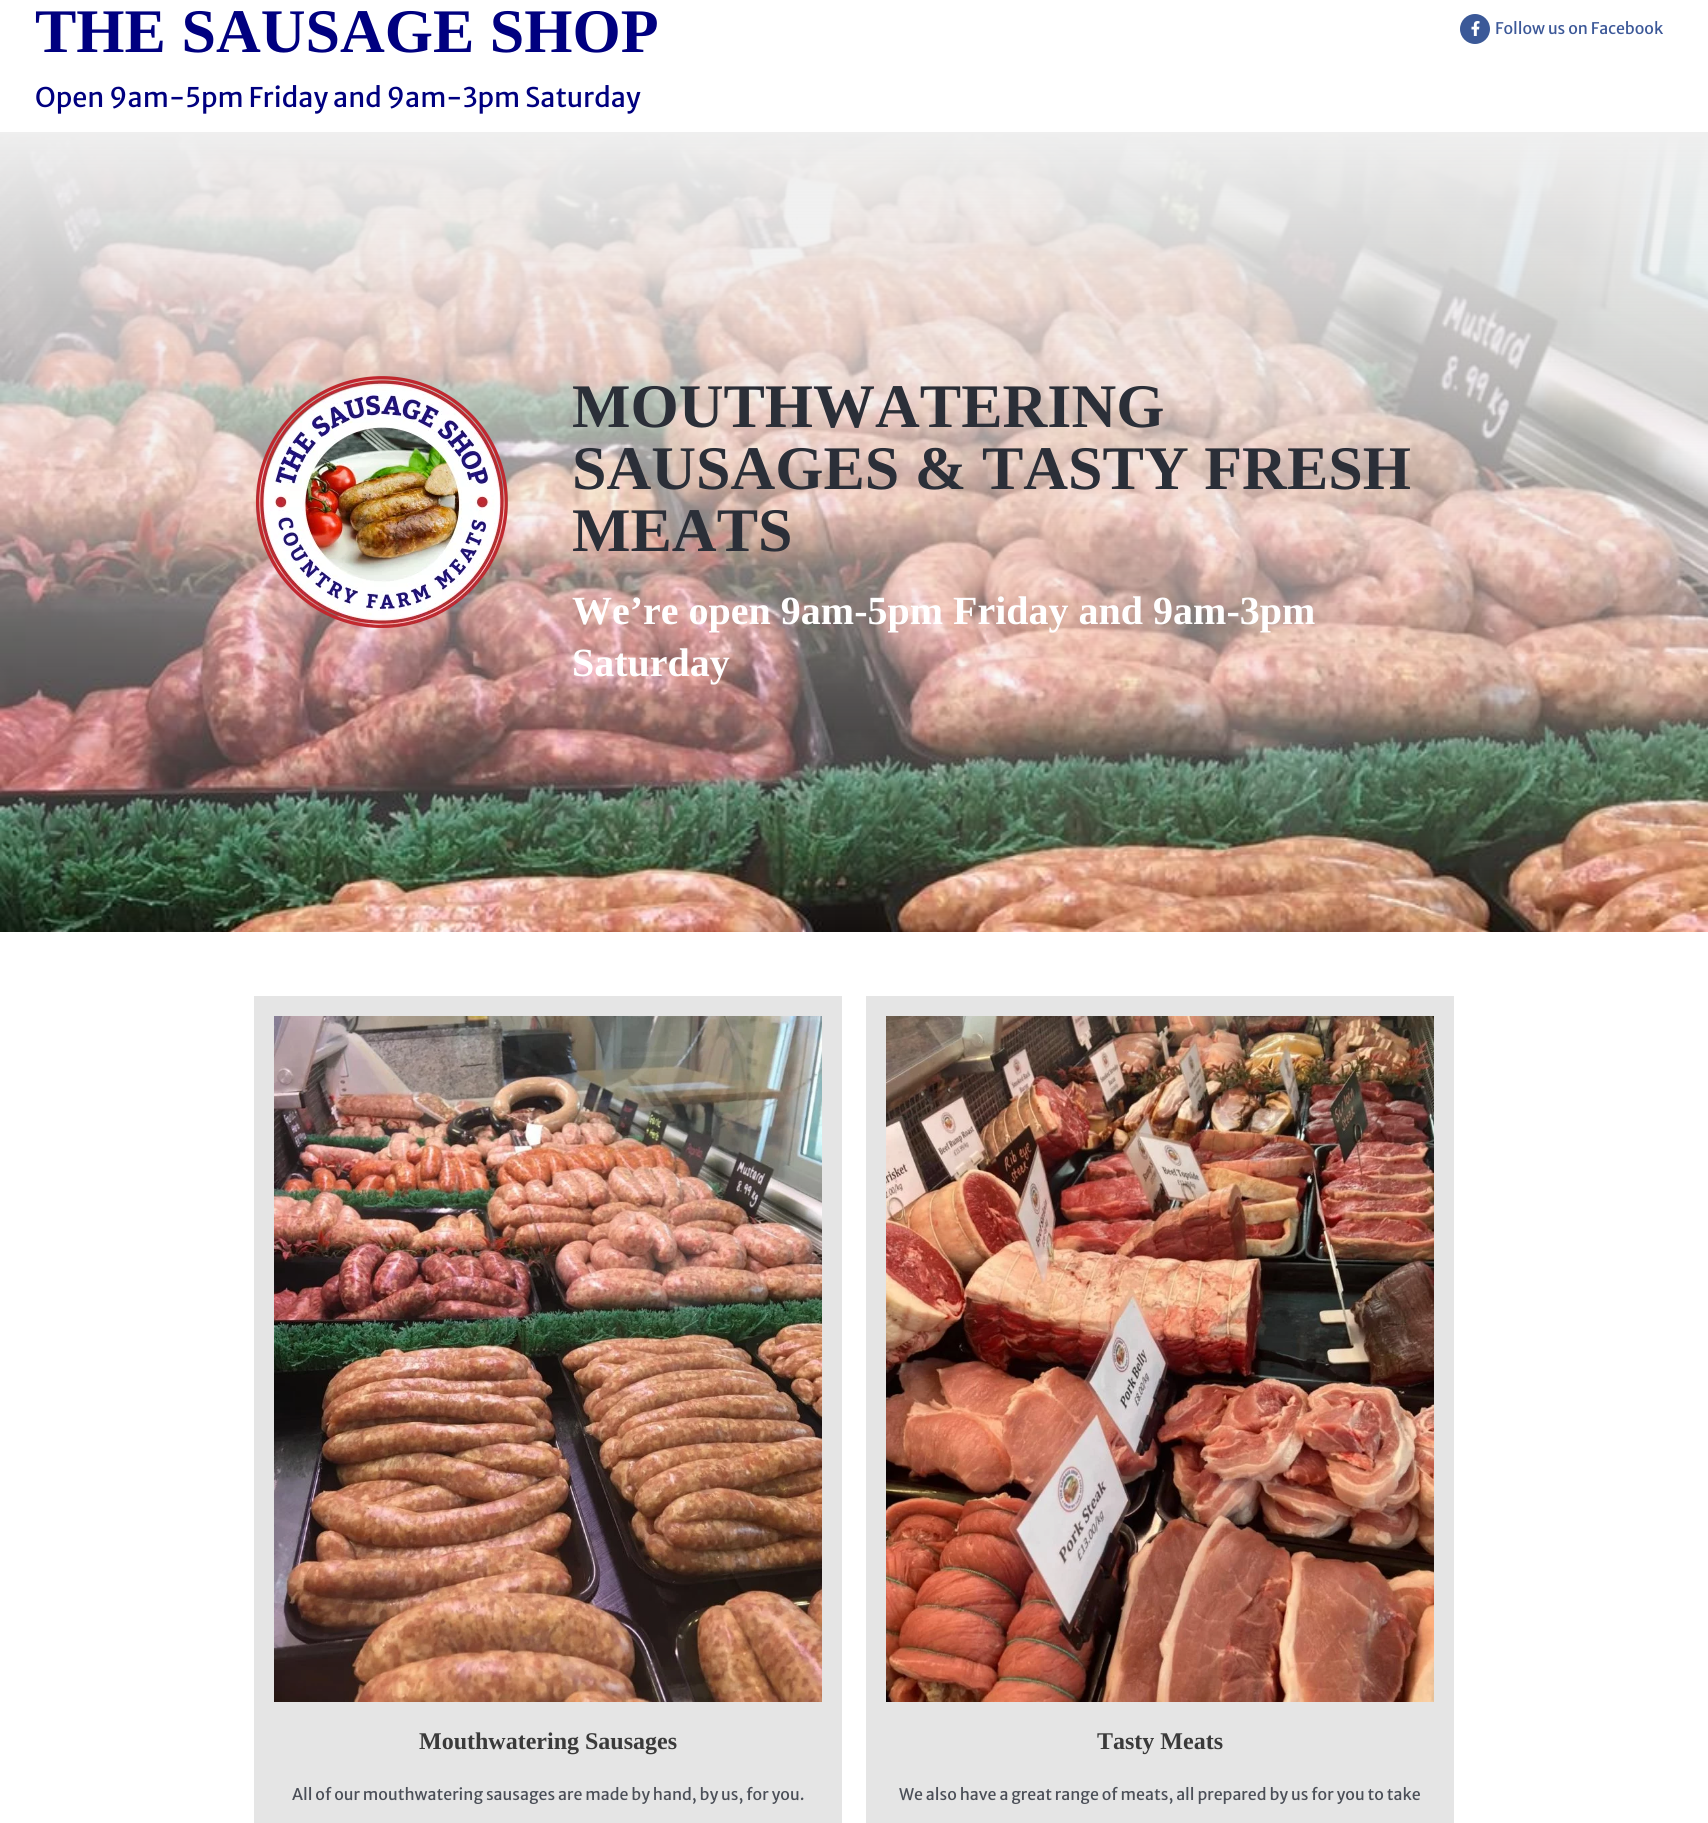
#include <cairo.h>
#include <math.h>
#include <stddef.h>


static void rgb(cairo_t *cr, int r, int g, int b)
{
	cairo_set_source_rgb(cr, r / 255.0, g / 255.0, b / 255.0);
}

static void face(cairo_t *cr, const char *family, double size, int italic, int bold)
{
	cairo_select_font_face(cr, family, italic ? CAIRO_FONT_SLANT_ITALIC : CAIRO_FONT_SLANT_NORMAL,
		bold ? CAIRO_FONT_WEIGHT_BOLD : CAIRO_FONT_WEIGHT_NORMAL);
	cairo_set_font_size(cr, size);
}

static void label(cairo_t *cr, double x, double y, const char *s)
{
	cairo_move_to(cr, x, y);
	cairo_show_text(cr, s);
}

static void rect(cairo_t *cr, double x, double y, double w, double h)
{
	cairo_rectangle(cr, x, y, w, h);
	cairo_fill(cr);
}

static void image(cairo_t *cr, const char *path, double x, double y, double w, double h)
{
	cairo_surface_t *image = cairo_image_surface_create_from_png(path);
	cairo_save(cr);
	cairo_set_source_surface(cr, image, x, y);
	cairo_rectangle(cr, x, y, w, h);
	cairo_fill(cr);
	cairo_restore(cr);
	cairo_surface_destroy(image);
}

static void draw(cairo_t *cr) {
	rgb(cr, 255, 255, 255);
	cairo_paint(cr);
	face(cr, "Liberation Serif", 62, 0, 1);
	rgb(cr, 0, 0, 128);
	label(cr, 35, 52, "THE SAUSAGE SHOP");
	rgb(cr, 59, 89, 152);
	cairo_new_path(cr);
	cairo_arc(cr, 1475, 29, 15, 0, 2 * M_PI);
	cairo_fill(cr);
	image(cr, "image0.png", 1471, 21, 9, 15);
	face(cr, "Merriweather Sans", 16, 0, 0);
	rgb(cr, 60, 88, 152);
	label(cr, 1495, 34, "Follow us on Facebook");
	face(cr, "Merriweather Sans", 27, 0, 0);
	rgb(cr, 0, 0, 128);
	label(cr, 35, 107, "Open 9am-5pm Friday and 9am-3pm Saturday");
	image(cr, "image1.png", 0, 132, 1708, 800);
	image(cr, "image2.png", 255, 376, 253, 252);
	face(cr, "Liberation Serif", 62, 0, 1);
	rgb(cr, 43, 47, 56);
	label(cr, 572, 427, "MOUTHWATERING");
	label(cr, 572, 489, "SAUSAGES & TASTY FRESH");
	label(cr, 572, 551, "MEATS");
	face(cr, "Liberation Serif", 40, 0, 1);
	rgb(cr, 255, 255, 255);
	label(cr, 572, 624, "We’re open 9am-5pm Friday and 9am-3pm");
	label(cr, 572, 676, "Saturday");
	rgb(cr, 229, 229, 229);
	rect(cr, 254, 996, 588, 827);
	image(cr, "image3.png", 274, 1016, 548, 686);
	face(cr, "Liberation Serif", 24, 0, 1);
	rgb(cr, 58, 58, 58);
	label(cr, 419, 1749, "Mouthwatering Sausages");
	face(cr, "Merriweather Sans", 16, 0, 0);
	rgb(cr, 75, 79, 88);
	label(cr, 292, 1800, "All of our mouthwatering sausages are made by hand, by us, for you.");
	rgb(cr, 229, 229, 229);
	rect(cr, 866, 996, 588, 827);
	image(cr, "image4.png", 886, 1016, 548, 686);
	face(cr, "Liberation Serif", 24, 0, 1);
	rgb(cr, 58, 58, 58);
	label(cr, 1097, 1749, "Tasty Meats");
	face(cr, "Merriweather Sans", 16, 0, 0);
	rgb(cr, 75, 79, 88);
	label(cr, 899, 1800, "We also have a great range of meats, all prepared by us for you to take");
}

int main(void) {
	cairo_surface_t *surface = cairo_image_surface_create(CAIRO_FORMAT_RGB24, 1708, 1823);
	cairo_t *cr = cairo_create(surface);
	cairo_font_options_t *options = cairo_font_options_create();
	cairo_font_options_set_hint_metrics(options, CAIRO_HINT_METRICS_OFF);
	cairo_font_options_set_hint_style(options, CAIRO_HINT_STYLE_NONE);
	cairo_set_font_options(cr, options);
	cairo_set_miter_limit(cr, 4);
	draw(cr);
	cairo_surface_write_to_png(surface, "render.png");
	cairo_font_options_destroy(options);
	cairo_destroy(cr);
	cairo_surface_destroy(surface);
	return 0;
}
